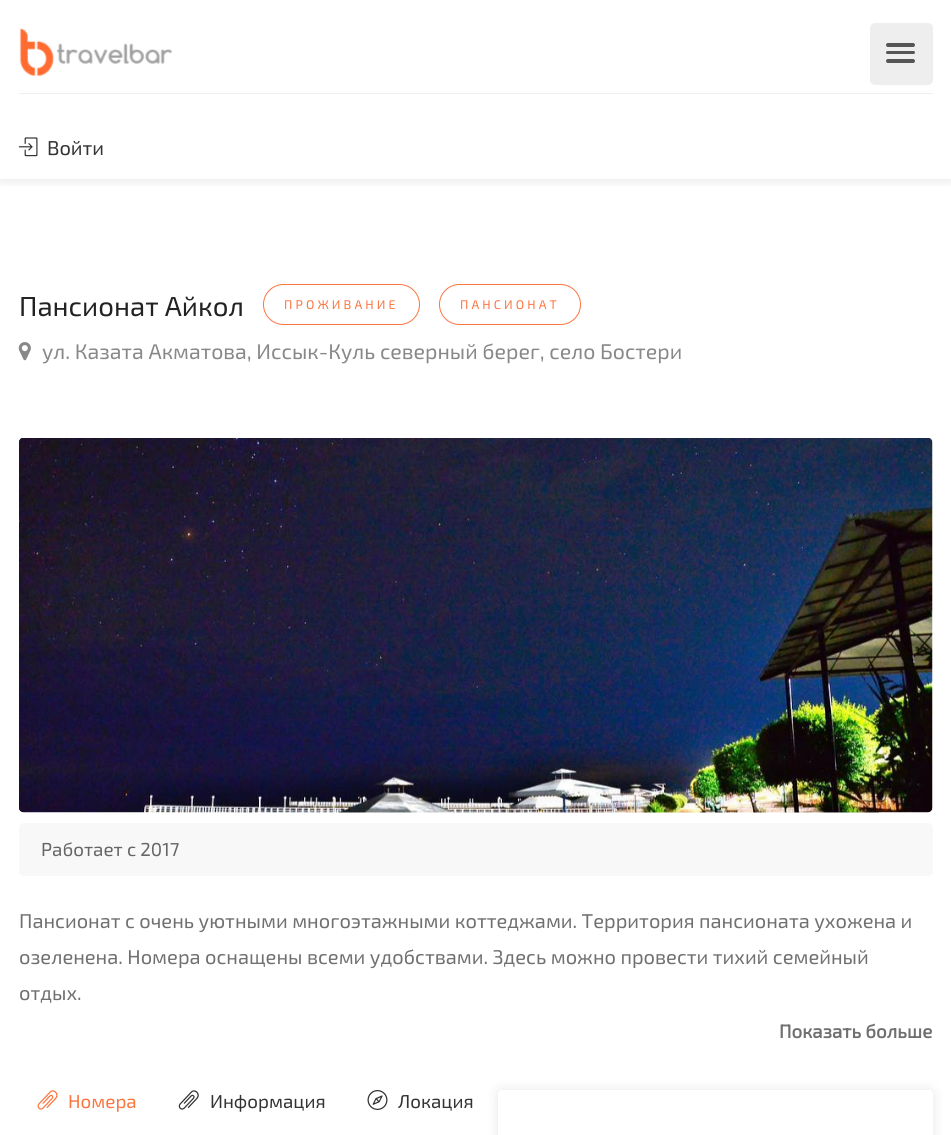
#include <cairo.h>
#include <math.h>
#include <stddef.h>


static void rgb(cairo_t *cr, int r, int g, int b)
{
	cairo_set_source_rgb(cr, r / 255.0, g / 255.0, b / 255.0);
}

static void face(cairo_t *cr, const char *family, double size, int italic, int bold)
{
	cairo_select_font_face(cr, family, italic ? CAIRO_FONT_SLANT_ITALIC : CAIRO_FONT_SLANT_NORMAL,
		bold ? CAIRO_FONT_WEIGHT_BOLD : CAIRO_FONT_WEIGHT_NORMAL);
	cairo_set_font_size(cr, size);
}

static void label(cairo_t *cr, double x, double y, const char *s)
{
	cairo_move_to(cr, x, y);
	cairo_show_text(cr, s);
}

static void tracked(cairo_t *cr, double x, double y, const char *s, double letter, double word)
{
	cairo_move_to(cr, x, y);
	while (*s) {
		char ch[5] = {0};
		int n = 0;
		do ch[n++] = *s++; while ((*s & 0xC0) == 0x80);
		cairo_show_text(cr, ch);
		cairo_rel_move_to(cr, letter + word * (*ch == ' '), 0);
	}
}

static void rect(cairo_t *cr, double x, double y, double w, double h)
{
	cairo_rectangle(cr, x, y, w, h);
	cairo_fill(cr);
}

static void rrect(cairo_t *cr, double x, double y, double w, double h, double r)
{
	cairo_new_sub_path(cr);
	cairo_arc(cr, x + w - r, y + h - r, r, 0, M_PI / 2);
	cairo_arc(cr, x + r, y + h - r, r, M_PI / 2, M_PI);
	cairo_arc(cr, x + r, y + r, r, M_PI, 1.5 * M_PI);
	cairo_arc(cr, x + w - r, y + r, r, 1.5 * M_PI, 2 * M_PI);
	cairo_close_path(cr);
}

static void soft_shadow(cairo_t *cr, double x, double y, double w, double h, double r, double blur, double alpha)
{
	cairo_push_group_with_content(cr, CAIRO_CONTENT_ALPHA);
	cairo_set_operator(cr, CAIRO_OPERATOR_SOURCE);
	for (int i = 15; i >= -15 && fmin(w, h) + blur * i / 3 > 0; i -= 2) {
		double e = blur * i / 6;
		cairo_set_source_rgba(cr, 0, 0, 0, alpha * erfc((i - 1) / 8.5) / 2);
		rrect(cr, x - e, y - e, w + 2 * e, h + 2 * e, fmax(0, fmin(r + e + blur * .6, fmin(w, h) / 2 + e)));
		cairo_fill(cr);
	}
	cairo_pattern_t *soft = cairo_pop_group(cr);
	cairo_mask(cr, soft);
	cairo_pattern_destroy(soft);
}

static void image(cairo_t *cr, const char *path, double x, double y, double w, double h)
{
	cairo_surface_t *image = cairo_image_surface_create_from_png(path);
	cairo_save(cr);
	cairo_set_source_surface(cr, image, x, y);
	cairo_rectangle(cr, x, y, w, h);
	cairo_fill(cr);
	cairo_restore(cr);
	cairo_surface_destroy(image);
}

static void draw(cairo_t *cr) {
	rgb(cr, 255, 255, 255);
	cairo_paint(cr);
	cairo_save(cr);
	cairo_rectangle(cr, 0, 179, 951, 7);
	cairo_clip(cr);
	rgb(cr, 0, 0, 0);
	soft_shadow(cr, 0, 0, 951, 179, 0, 7.5, 0.12);
	cairo_restore(cr);
	image(cr, "image0.png", 19, 28, 153, 48);
	rgb(cr, 238, 238, 238);
	rrect(cr, 870, 23, 63, 62, 5);
	cairo_fill(cr);
	rgb(cr, 85, 85, 85);
	rrect(cr, 886, 59, 29, 4, 2);
	cairo_fill(cr);
	rrect(cr, 886, 43, 29, 4, 2);
	cairo_fill(cr);
	rrect(cr, 886, 51, 29, 3, 1.5);
	cairo_fill(cr);
	rgb(cr, 238, 238, 238);
	rect(cr, 19, 93, 914, 1);
	image(cr, "image1.png", 18, 137, 20, 20);
	face(cr, "Exo 2", 20, 0, 0);
	rgb(cr, 51, 51, 51);
	label(cr, 47, 155, "Войти");
	face(cr, "Exo 2", 27.5, 0, 0);
	rgb(cr, 34, 34, 34);
	label(cr, 19, 316, "Пансионат Айкол");
	rrect(cr, 263.5, 284.5, 156, 40, 20);
	rgb(cr, 251, 117, 64);
	cairo_set_line_width(cr, 1);
	cairo_stroke(cr);
	face(cr, "Exo 2", 12.5, 0, 0);
	tracked(cr, 284, 309, "ПРОЖИВАНИЕ", 3.1, 0);
	rrect(cr, 439.5, 284.5, 141, 40, 20);
	cairo_stroke(cr);
	tracked(cr, 460, 309, "ПАНСИОНАТ", 3.1, 0);
	image(cr, "image2.png", 18, 342, 13, 19);
	face(cr, "Exo 2", 21.25, 0, 0);
	rgb(cr, 136, 136, 136);
	label(cr, 42, 359, "ул. Казата Акматова, Иссык-Куль северный берег, село Бостери");
	image(cr, "image3.png", 19, 438, 914, 375);
	rgb(cr, 248, 248, 248);
	rrect(cr, 19, 823, 914, 53, 5);
	cairo_fill(cr);
	face(cr, "Exo 2", 18.75, 0, 0);
	rgb(cr, 102, 102, 102);
	label(cr, 41, 856, "Работает с 2017");
	face(cr, "Exo 2", 20, 0, 0);
	rgb(cr, 112, 112, 112);
	label(cr, 19, 928, "Пансионат с очень уютными многоэтажными коттеджами. Территория пансионата ухожена и");
	label(cr, 19, 964, "озеленена. Номера оснащены всеми удобствами. Здесь можно провести тихий семейный");
	label(cr, 19, 1000, "отдых.");
	face(cr, "Exo 2", 18.75, 0, 1);
	label(cr, 779, 1038, "Показать больше");
	image(cr, "image4.png", 37, 1090, 21, 20);
	face(cr, "Exo 2", 18.75, 0, 0);
	rgb(cr, 251, 117, 64);
	label(cr, 68, 1108, "Номера");
	image(cr, "image5.png", 178, 1090, 21, 20);
	rgb(cr, 51, 51, 51);
	label(cr, 210, 1108, "Информация");
	image(cr, "image6.png", 367, 1090, 21, 20);
	label(cr, 398, 1108, "Локация");
	cairo_save(cr);
	cairo_set_fill_rule(cr, CAIRO_FILL_RULE_EVEN_ODD);
	cairo_new_path(cr);
	cairo_move_to(cr, 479, 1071);
	cairo_line_to(cr, 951, 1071);
	cairo_line_to(cr, 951, 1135);
	cairo_line_to(cr, 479, 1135);
	cairo_close_path(cr);
	cairo_move_to(cr, 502, 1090);
	cairo_line_to(cr, 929, 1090);
	cairo_curve_to(cr, 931, 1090, 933, 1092, 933, 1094);
	cairo_line_to(cr, 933, 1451);
	cairo_curve_to(cr, 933, 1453, 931, 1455, 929, 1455);
	cairo_line_to(cr, 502, 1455);
	cairo_curve_to(cr, 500, 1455, 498, 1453, 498, 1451);
	cairo_line_to(cr, 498, 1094);
	cairo_curve_to(cr, 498, 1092, 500, 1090, 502, 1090);
	cairo_close_path(cr);
	cairo_clip(cr);
	rgb(cr, 0, 0, 0);
	soft_shadow(cr, 498, 1090, 435, 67, 4, 6, 0.1);
	cairo_restore(cr);
}

int main(void) {
	cairo_surface_t *surface = cairo_image_surface_create(CAIRO_FORMAT_RGB24, 951, 1135);
	cairo_t *cr = cairo_create(surface);
	cairo_font_options_t *options = cairo_font_options_create();
	cairo_font_options_set_hint_metrics(options, CAIRO_HINT_METRICS_OFF);
	cairo_font_options_set_hint_style(options, CAIRO_HINT_STYLE_NONE);
	cairo_set_font_options(cr, options);
	cairo_set_miter_limit(cr, 4);
	draw(cr);
	cairo_surface_write_to_png(surface, "render.png");
	cairo_font_options_destroy(options);
	cairo_destroy(cr);
	cairo_surface_destroy(surface);
	return 0;
}
